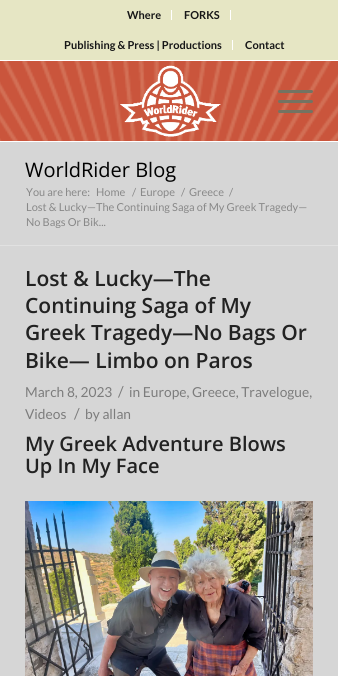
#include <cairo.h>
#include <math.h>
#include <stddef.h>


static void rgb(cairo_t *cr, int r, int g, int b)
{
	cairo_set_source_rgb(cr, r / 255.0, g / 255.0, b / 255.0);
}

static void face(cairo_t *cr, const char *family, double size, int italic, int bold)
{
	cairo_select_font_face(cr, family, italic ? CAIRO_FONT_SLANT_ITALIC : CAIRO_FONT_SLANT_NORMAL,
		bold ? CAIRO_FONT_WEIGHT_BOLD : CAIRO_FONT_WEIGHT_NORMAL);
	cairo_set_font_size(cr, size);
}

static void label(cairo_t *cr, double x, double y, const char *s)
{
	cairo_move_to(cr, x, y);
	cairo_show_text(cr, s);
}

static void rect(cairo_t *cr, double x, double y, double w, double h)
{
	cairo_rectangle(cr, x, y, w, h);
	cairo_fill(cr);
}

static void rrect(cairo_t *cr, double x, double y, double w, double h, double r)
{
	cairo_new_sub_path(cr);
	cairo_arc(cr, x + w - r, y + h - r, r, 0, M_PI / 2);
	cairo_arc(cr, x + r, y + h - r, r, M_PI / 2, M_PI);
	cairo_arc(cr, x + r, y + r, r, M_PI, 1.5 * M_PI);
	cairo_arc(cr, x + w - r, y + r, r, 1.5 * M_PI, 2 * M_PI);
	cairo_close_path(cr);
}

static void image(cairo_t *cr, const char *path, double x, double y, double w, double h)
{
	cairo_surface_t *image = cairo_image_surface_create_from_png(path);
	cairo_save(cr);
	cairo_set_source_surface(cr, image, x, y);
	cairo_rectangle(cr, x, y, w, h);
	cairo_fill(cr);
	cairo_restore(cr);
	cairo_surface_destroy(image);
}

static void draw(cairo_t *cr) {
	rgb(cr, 214, 214, 214);
	cairo_paint(cr);
	rgb(cr, 230, 230, 196);
	rect(cr, 0, 0, 338, 60);
	rgb(cr, 255, 255, 255);
	rect(cr, 0, 60, 338, 1);
	rect(cr, 171, 10, 1, 10);
	face(cr, "Lato", 11, 0, 1);
	rgb(cr, 22, 22, 23);
	label(cr, 127, 19, "Where");
	rgb(cr, 255, 255, 255);
	rect(cr, 230, 10, 1, 10);
	rgb(cr, 22, 22, 23);
	label(cr, 184, 19, "FORKS");
	rgb(cr, 255, 255, 255);
	rect(cr, 232, 40, 1, 10);
	rgb(cr, 22, 22, 23);
	label(cr, 64, 49, "Publishing & Press | Productions");
	label(cr, 245, 49, "Contact");
	image(cr, "image0.png", 0, 61, 338, 80);
	rgb(cr, 255, 255, 255);
	rect(cr, 0, 141, 338, 1);
	image(cr, "image1.png", 120, 65, 101, 72);
	rgb(cr, 115, 115, 98);
	rrect(cr, 278, 100, 35, 3, 1.5);
	cairo_fill(cr);
	rrect(cr, 278, 90, 35, 3, 1.5);
	cairo_fill(cr);
	rrect(cr, 278, 110, 35, 3, 1.5);
	cairo_fill(cr);
	face(cr, "Open Sans", 20, 0, 0);
	rgb(cr, 0, 0, 0);
	label(cr, 25, 177, "WorldRider Blog");
	face(cr, "Lato", 11, 0, 0);
	rgb(cr, 136, 136, 136);
	label(cr, 26, 196, "You are here:");
	label(cr, 96, 196, "Home");
	label(cr, 132, 196, "/");
	label(cr, 140, 196, "Europe");
	label(cr, 181, 196, "/");
	label(cr, 189, 196, "Greece");
	label(cr, 229, 196, "/");
	label(cr, 26, 211, "Lost & Lucky—The Continuing Saga of My Greek Tragedy—");
	label(cr, 26, 226, "No Bags Or Bik...");
	rgb(cr, 225, 225, 225);
	rect(cr, 0, 245, 338, 1);
	face(cr, "Open Sans SemiBold", 21, 0, 0);
	rgb(cr, 34, 34, 34);
	label(cr, 25, 286, "Lost & Lucky—The");
	label(cr, 25, 313, "Continuing Saga of My");
	label(cr, 25, 340, "Greek Tragedy—No Bags Or");
	label(cr, 25, 368, "Bike— Limbo on Paros");
	face(cr, "Lato", 13.75, 0, 0);
	rgb(cr, 124, 124, 124);
	label(cr, 25, 397, "March 8, 2023");
	face(cr, "Lato", 15, 0, 0);
	label(cr, 118, 397, "/");
	face(cr, "Lato", 13.75, 0, 0);
	label(cr, 129, 397, "in Europe, Greece, Travelogue,");
	label(cr, 25, 419, "Videos");
	face(cr, "Lato", 15, 0, 0);
	label(cr, 74, 419, "/");
	face(cr, "Lato", 13.75, 0, 0);
	label(cr, 85, 419, "by allan");
	face(cr, "Open Sans SemiBold", 20, 0, 0);
	rgb(cr, 34, 34, 34);
	label(cr, 25, 451, "My Greek Adventure Blows");
	label(cr, 25, 473, "Up In My Face");
	image(cr, "image2.png", 25, 501, 288, 175);
}

int main(void) {
	cairo_surface_t *surface = cairo_image_surface_create(CAIRO_FORMAT_RGB24, 338, 676);
	cairo_t *cr = cairo_create(surface);
	cairo_font_options_t *options = cairo_font_options_create();
	cairo_font_options_set_hint_metrics(options, CAIRO_HINT_METRICS_OFF);
	cairo_font_options_set_hint_style(options, CAIRO_HINT_STYLE_NONE);
	cairo_set_font_options(cr, options);
	cairo_set_miter_limit(cr, 4);
	draw(cr);
	cairo_surface_write_to_png(surface, "render.png");
	cairo_font_options_destroy(options);
	cairo_destroy(cr);
	cairo_surface_destroy(surface);
	return 0;
}
